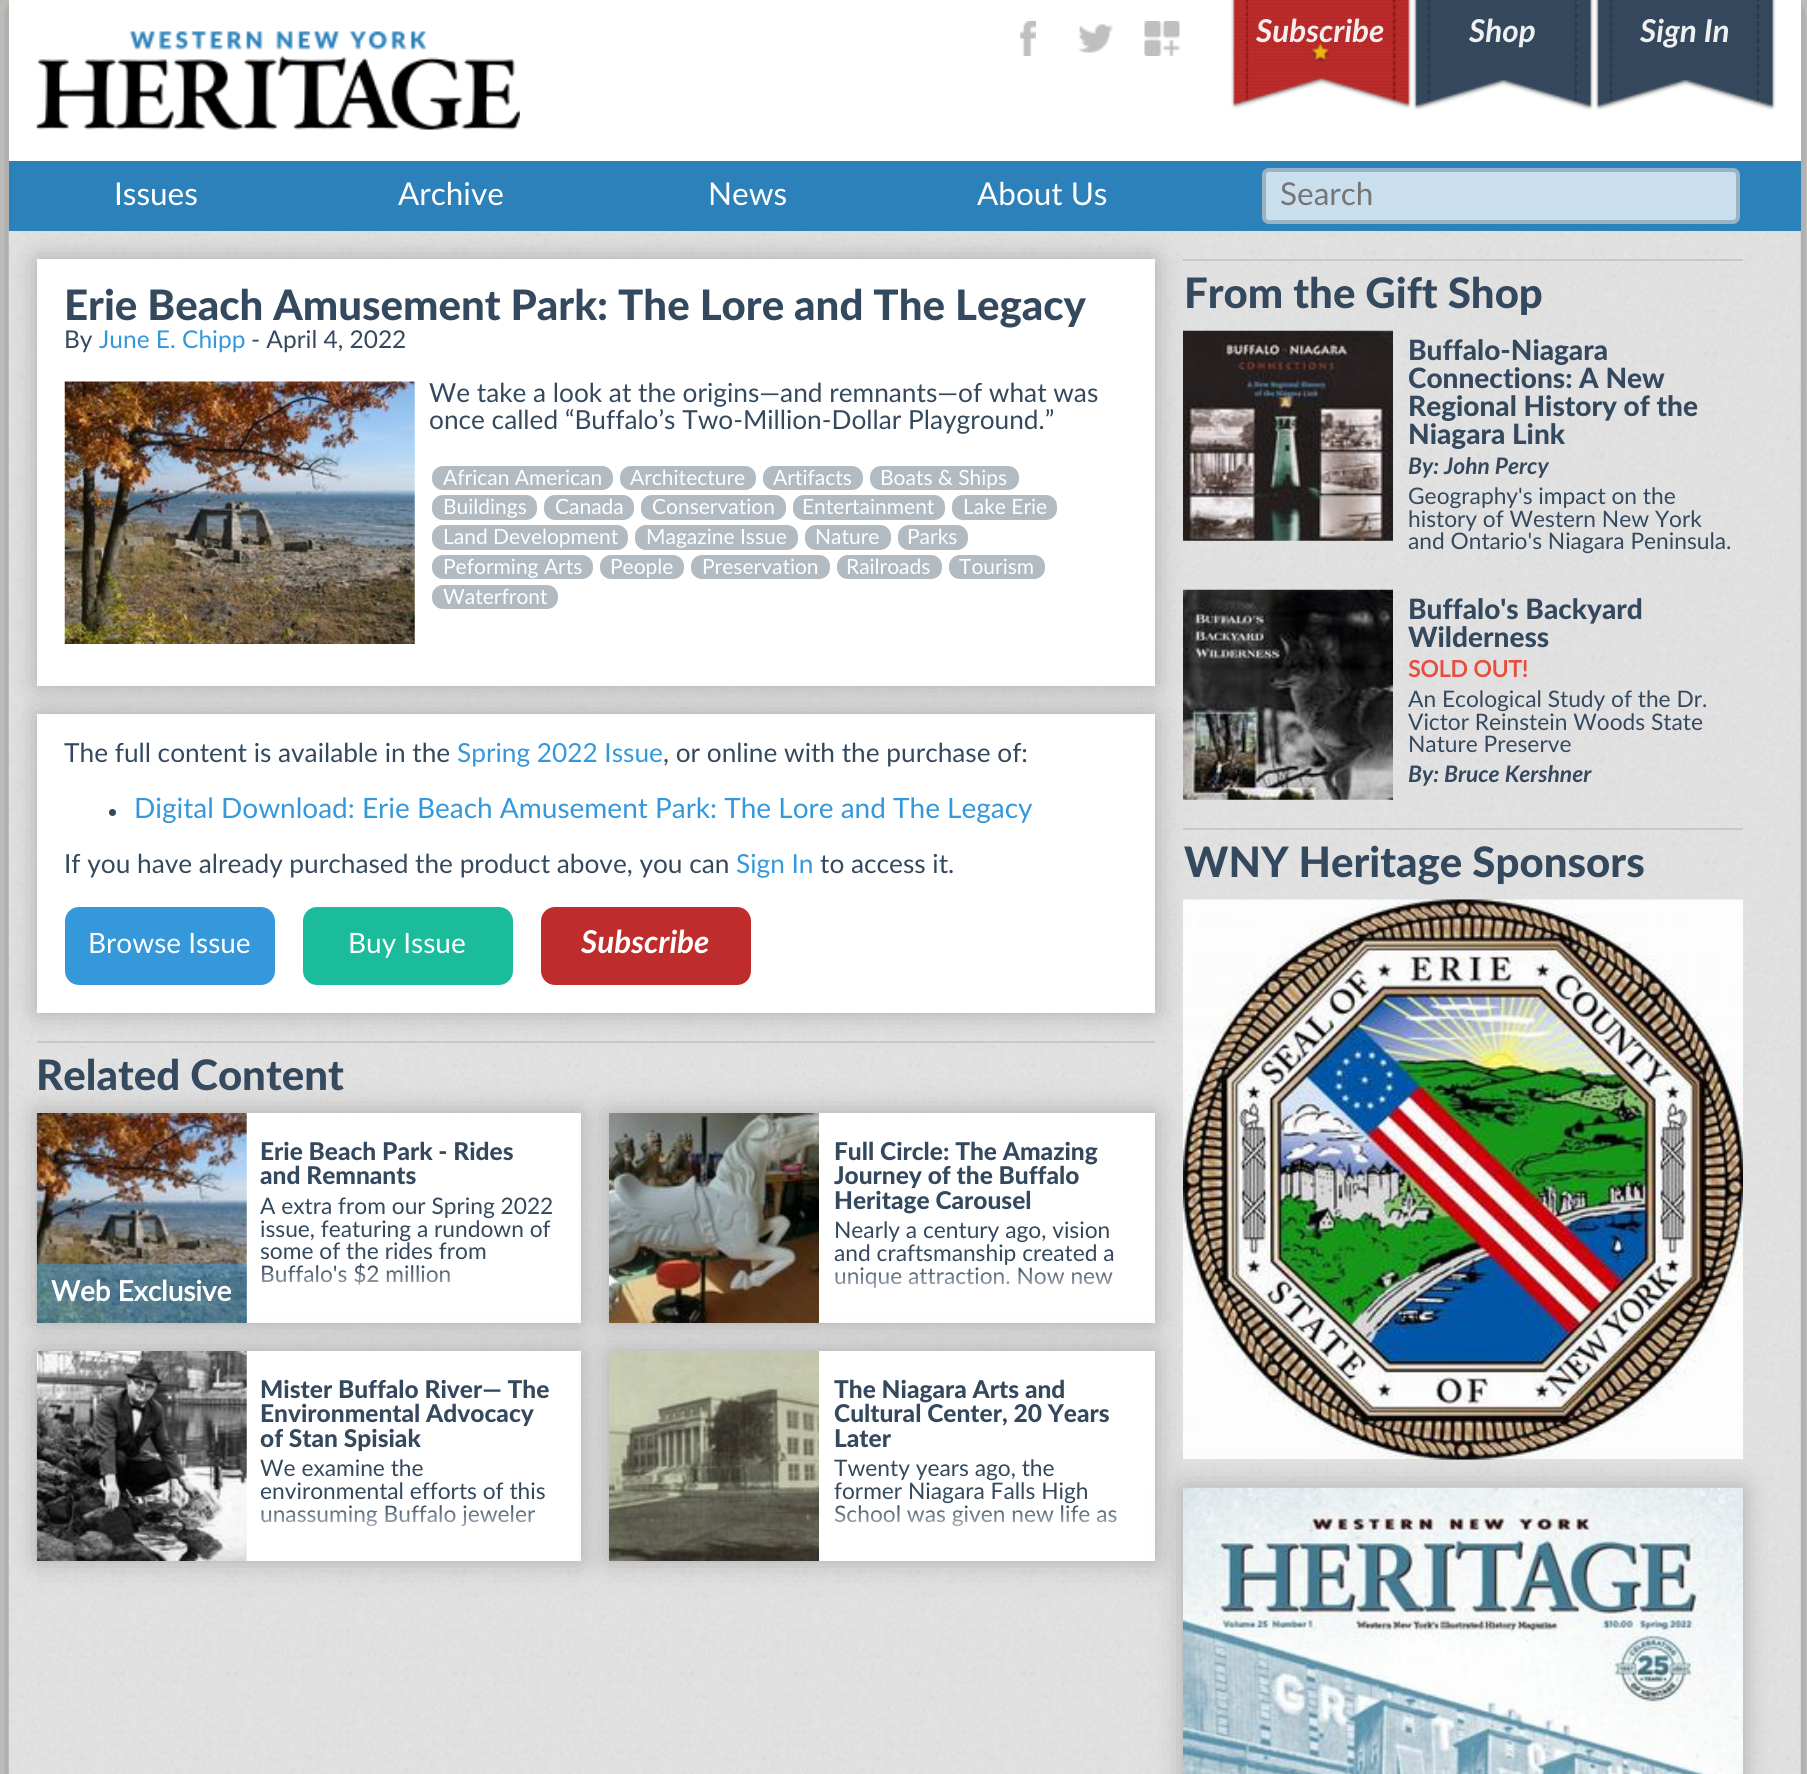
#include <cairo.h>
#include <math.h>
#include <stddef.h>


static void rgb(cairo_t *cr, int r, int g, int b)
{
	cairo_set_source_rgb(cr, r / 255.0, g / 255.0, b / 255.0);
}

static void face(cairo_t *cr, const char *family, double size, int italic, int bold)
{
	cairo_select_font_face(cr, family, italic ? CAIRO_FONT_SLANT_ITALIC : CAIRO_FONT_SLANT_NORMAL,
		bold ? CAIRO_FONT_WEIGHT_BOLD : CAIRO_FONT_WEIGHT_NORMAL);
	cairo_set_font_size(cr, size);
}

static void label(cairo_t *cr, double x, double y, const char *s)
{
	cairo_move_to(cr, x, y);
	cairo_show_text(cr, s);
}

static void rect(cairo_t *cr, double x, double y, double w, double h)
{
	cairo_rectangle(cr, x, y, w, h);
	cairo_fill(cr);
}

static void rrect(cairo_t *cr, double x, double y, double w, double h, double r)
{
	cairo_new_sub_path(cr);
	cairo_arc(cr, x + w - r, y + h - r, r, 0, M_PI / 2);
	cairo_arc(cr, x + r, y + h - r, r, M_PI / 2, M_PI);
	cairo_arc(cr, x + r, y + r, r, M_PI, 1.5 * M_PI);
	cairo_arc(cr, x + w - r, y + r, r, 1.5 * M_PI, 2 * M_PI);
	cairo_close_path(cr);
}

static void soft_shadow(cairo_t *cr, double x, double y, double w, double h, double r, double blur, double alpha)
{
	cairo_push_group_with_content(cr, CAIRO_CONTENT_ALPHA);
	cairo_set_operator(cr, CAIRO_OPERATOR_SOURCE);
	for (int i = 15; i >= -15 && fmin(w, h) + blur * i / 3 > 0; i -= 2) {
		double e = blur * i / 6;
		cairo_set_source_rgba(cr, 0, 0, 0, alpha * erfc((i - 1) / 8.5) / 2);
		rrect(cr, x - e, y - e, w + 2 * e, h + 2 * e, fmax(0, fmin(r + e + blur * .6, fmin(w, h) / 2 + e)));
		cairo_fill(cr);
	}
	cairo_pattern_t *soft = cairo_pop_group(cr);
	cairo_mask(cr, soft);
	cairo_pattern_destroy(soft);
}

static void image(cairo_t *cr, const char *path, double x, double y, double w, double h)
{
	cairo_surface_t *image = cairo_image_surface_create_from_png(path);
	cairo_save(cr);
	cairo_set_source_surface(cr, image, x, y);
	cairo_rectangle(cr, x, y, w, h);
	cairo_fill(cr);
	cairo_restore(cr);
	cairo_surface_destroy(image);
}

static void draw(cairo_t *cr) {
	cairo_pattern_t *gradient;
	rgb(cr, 217, 218, 213);
	cairo_paint(cr);
	rgb(cr, 136, 136, 136);
	soft_shadow(cr, 9, 0, 1792, 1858, 0, 28, 1);
	rgb(cr, 255, 255, 255);
	rect(cr, 9, 0, 1792, 161);
	image(cr, "image0.png", 36, 31, 484, 99);
	image(cr, "image1.png", 1020, 21, 16, 35);
	image(cr, "image2.png", 1078, 24, 35, 29);
	image(cr, "image3.png", 1144, 21, 36, 35);
	image(cr, "image4.png", 1231, 0, 181, 109);
	face(cr, "Lato", 31.5, 1, 1);
	rgb(cr, 249, 238, 238);
	label(cr, 1256, 42, "Subscribe");
	image(cr, "image5.png", 1311, 43, 19, 19);
	image(cr, "image6.png", 1413, 0, 181, 110);
	rgb(cr, 239, 240, 242);
	label(cr, 1469, 42, "Shop");
	image(cr, "image7.png", 1595, 0, 181, 110);
	label(cr, 1640, 42, "Sign In");
	image(cr, "image8.png", 8, 231, 1793, 1543);
	rgb(cr, 170, 170, 170);
	soft_shadow(cr, 37, 259, 1118, 427, 0, 14, 1);
	rgb(cr, 44, 129, 186);
	rect(cr, 9, 161, 1792, 70);
	face(cr, "Lato", 31.5, 0, 0);
	rgb(cr, 255, 255, 255);
	label(cr, 114, 205, "Issues");
	label(cr, 398, 205, "Archive");
	label(cr, 708, 205, "News");
	label(cr, 977, 205, "About Us");
	rgb(cr, 202, 223, 238);
	rrect(cr, 1264, 170, 474, 52, 5);
	cairo_fill_preserve(cr);
	rgb(cr, 153, 178, 196);
	cairo_set_line_width(cr, 4);
	cairo_stroke(cr);
	rgb(cr, 117, 117, 117);
	label(cr, 1280, 205, "Search");
	rgb(cr, 255, 255, 255);
	rect(cr, 37, 259, 1118, 427);
	face(cr, "Lato Black", 42, 0, 0);
	rgb(cr, 52, 73, 94);
	label(cr, 64, 320, "Erie Beach Amusement Park: The Lore and The Legacy");
	face(cr, "Lato", 24.5, 0, 0);
	label(cr, 64, 348, "By");
	rgb(cr, 52, 152, 219);
	label(cr, 99, 348, "June E. Chipp");
	rgb(cr, 52, 73, 94);
	label(cr, 251, 348, "- April 4, 2022");
	image(cr, "image9.png", 64, 381, 351, 263);
	face(cr, "Lato", 26.25, 0, 0);
	label(cr, 429, 402, "We take a look at the origins—and remnants—of what was");
	label(cr, 429, 429, "once called “Buffalo’s Two-Million-Dollar Playground.”");
	rgb(cr, 178, 186, 194);
	rrect(cr, 432, 466, 181, 24, 11);
	cairo_fill(cr);
	face(cr, "Lato", 21, 0, 0);
	rgb(cr, 255, 255, 255);
	label(cr, 443, 485, "African American");
	rgb(cr, 178, 186, 194);
	rrect(cr, 620, 466, 136, 24, 11);
	cairo_fill(cr);
	rgb(cr, 255, 255, 255);
	label(cr, 630, 485, "Architecture");
	rgb(cr, 178, 186, 194);
	rrect(cr, 763, 466, 100, 24, 11);
	cairo_fill(cr);
	rgb(cr, 255, 255, 255);
	label(cr, 773, 485, "Artifacts");
	rgb(cr, 178, 186, 194);
	rrect(cr, 870, 466, 149, 24, 11);
	cairo_fill(cr);
	rgb(cr, 255, 255, 255);
	label(cr, 880, 485, "Boats & Ships");
	rgb(cr, 178, 186, 194);
	rrect(cr, 432, 495, 105, 25, 11);
	cairo_fill(cr);
	rgb(cr, 255, 255, 255);
	label(cr, 443, 514, "Buildings");
	rgb(cr, 178, 186, 194);
	rrect(cr, 544, 495, 90, 25, 11);
	cairo_fill(cr);
	rgb(cr, 255, 255, 255);
	label(cr, 555, 514, "Canada");
	rgb(cr, 178, 186, 194);
	rrect(cr, 641, 495, 145, 25, 11);
	cairo_fill(cr);
	rgb(cr, 255, 255, 255);
	label(cr, 652, 514, "Conservation");
	rgb(cr, 178, 186, 194);
	rrect(cr, 793, 495, 152, 25, 11);
	cairo_fill(cr);
	rgb(cr, 255, 255, 255);
	label(cr, 802, 514, "Entertainment");
	rgb(cr, 178, 186, 194);
	rrect(cr, 952, 495, 105, 25, 11);
	cairo_fill(cr);
	rgb(cr, 255, 255, 255);
	label(cr, 963, 514, "Lake Erie");
	rgb(cr, 178, 186, 194);
	rrect(cr, 432, 525, 196, 25, 11);
	cairo_fill(cr);
	rgb(cr, 255, 255, 255);
	label(cr, 443, 544, "Land Development");
	rgb(cr, 178, 186, 194);
	rrect(cr, 635, 525, 163, 25, 11);
	cairo_fill(cr);
	rgb(cr, 255, 255, 255);
	label(cr, 646, 544, "Magazine Issue");
	rgb(cr, 178, 186, 194);
	rrect(cr, 805, 525, 86, 25, 11);
	cairo_fill(cr);
	rgb(cr, 255, 255, 255);
	label(cr, 815, 544, "Nature");
	rgb(cr, 178, 186, 194);
	rrect(cr, 898, 525, 70, 25, 11);
	cairo_fill(cr);
	rgb(cr, 255, 255, 255);
	label(cr, 907, 544, "Parks");
	rgb(cr, 178, 186, 194);
	rrect(cr, 432, 555, 161, 24, 11);
	cairo_fill(cr);
	rgb(cr, 255, 255, 255);
	label(cr, 443, 574, "Peforming Arts");
	rgb(cr, 178, 186, 194);
	rrect(cr, 600, 555, 84, 24, 11);
	cairo_fill(cr);
	rgb(cr, 255, 255, 255);
	label(cr, 610, 574, "People");
	rgb(cr, 178, 186, 194);
	rrect(cr, 691, 555, 139, 24, 11);
	cairo_fill(cr);
	rgb(cr, 255, 255, 255);
	label(cr, 702, 574, "Preservation");
	rgb(cr, 178, 186, 194);
	rrect(cr, 837, 555, 105, 24, 11);
	cairo_fill(cr);
	rgb(cr, 255, 255, 255);
	label(cr, 846, 574, "Railroads");
	rgb(cr, 178, 186, 194);
	rrect(cr, 949, 555, 96, 24, 11);
	cairo_fill(cr);
	rgb(cr, 255, 255, 255);
	label(cr, 959, 574, "Tourism");
	rgb(cr, 178, 186, 194);
	rrect(cr, 432, 585, 126, 24, 11);
	cairo_fill(cr);
	rgb(cr, 255, 255, 255);
	label(cr, 443, 604, "Waterfront");
	rgb(cr, 170, 170, 170);
	soft_shadow(cr, 37, 714, 1118, 299, 0, 14, 1);
	rgb(cr, 255, 255, 255);
	rect(cr, 37, 714, 1118, 299);
	face(cr, "Lato", 26.25, 0, 0);
	rgb(cr, 52, 73, 94);
	label(cr, 64, 762, "The full content is available in the");
	rgb(cr, 52, 152, 219);
	label(cr, 457, 762, "Spring 2022 Issue");
	rgb(cr, 52, 73, 94);
	label(cr, 663, 762, ", or online with the purchase of:");
	cairo_new_path(cr);
	cairo_arc(cr, 112.5, 812.5, 3.5, 0, 2 * M_PI);
	cairo_fill(cr);
	face(cr, "Lato", 28, 0, 0);
	rgb(cr, 52, 152, 219);
	label(cr, 134, 818, "Digital Download: Erie Beach Amusement Park: The Lore and The Legacy");
	face(cr, "Lato", 26.25, 0, 0);
	rgb(cr, 52, 73, 94);
	label(cr, 64, 873, "If you have already purchased the product above, you can");
	rgb(cr, 52, 152, 219);
	label(cr, 736, 873, "Sign In");
	rgb(cr, 52, 73, 94);
	label(cr, 820, 873, "to access it.");
	rgb(cr, 52, 152, 219);
	rrect(cr, 65, 907, 210, 78, 14);
	cairo_fill(cr);
	face(cr, "Lato", 28, 0, 0);
	rgb(cr, 255, 255, 255);
	label(cr, 88, 953, "Browse Issue");
	rgb(cr, 26, 188, 156);
	rrect(cr, 303, 907, 210, 78, 14);
	cairo_fill(cr);
	rgb(cr, 255, 255, 255);
	label(cr, 348, 953, "Buy Issue");
	rgb(cr, 190, 44, 44);
	rrect(cr, 541, 907, 210, 78, 14);
	cairo_fill(cr);
	face(cr, "Lato", 31.5, 1, 1);
	rgb(cr, 255, 255, 255);
	label(cr, 581, 953, "Subscribe");
	rgb(cr, 200, 200, 200);
	rect(cr, 37, 1041, 1118, 2);
	face(cr, "Lato Black", 42, 0, 0);
	rgb(cr, 52, 73, 94);
	label(cr, 36, 1090, "Related Content");
	rgb(cr, 170, 170, 170);
	soft_shadow(cr, 37, 1113, 544, 210, 0, 14, 1);
	rgb(cr, 255, 255, 255);
	rect(cr, 246, 1113, 335, 209);
	face(cr, "Lato", 22.75, 0, 0);
	rgb(cr, 52, 73, 94);
	label(cr, 260, 1282, "Buffalo's $2 million");
	gradient = cairo_pattern_create_linear(309, 1267, 309, 1323);
	cairo_pattern_add_color_stop_rgba(gradient, 0, 1, 1, 1, 0.02);
	cairo_pattern_add_color_stop_rgba(gradient, 0.5, 1, 1, 1, 0.75);
	cairo_pattern_add_color_stop_rgba(gradient, 1, 1, 1, 1, 1);
	cairo_set_source(cr, gradient);
	cairo_pattern_destroy(gradient);
	rect(cr, 246, 1267, 335, 56);
	image(cr, "image10.png", 36, 1113, 211, 210);
	face(cr, "Lato Black", 24.5, 0, 0);
	rgb(cr, 52, 73, 94);
	label(cr, 260, 1160, "Erie Beach Park - Rides");
	label(cr, 260, 1184, "and Remnants");
	face(cr, "Lato", 22.75, 0, 0);
	label(cr, 260, 1214, "A extra from our Spring 2022");
	label(cr, 260, 1237, "issue, featuring a rundown of");
	label(cr, 260, 1259, "some of the rides from");
	cairo_set_source_rgba(cr, 0.216, 0.6, 0.859, 0.5);
	rect(cr, 37, 1264, 210, 59);
	face(cr, "Lato", 28, 0, 1);
	rgb(cr, 255, 255, 255);
	label(cr, 51, 1301, "Web Exclusive");
	rgb(cr, 170, 170, 170);
	soft_shadow(cr, 609, 1113, 546, 210, 0, 14, 1);
	rgb(cr, 255, 255, 255);
	rect(cr, 819, 1113, 336, 209);
	image(cr, "image11.png", 609, 1113, 210, 210);
	face(cr, "Lato Black", 24.5, 0, 0);
	rgb(cr, 52, 73, 94);
	label(cr, 834, 1160, "Full Circle: The Amazing");
	label(cr, 834, 1184, "Journey of the Buffalo");
	label(cr, 834, 1209, "Heritage Carousel");
	face(cr, "Lato", 22.75, 0, 0);
	label(cr, 834, 1238, "Nearly a century ago, vision");
	label(cr, 834, 1261, "and craftsmanship created a");
	label(cr, 834, 1284, "unique attraction. Now new");
	gradient = cairo_pattern_create_linear(882, 1267, 882, 1323);
	cairo_pattern_add_color_stop_rgba(gradient, 0, 1, 1, 1, 0.02);
	cairo_pattern_add_color_stop_rgba(gradient, 0.5, 1, 1, 1, 0.75);
	cairo_pattern_add_color_stop_rgba(gradient, 1, 1, 1, 1, 1);
	cairo_set_source(cr, gradient);
	cairo_pattern_destroy(gradient);
	rect(cr, 819, 1267, 336, 56);
	rgb(cr, 170, 170, 170);
	soft_shadow(cr, 37, 1351, 544, 210, 0, 14, 1);
	rgb(cr, 255, 255, 255);
	rect(cr, 246, 1351, 335, 209);
	rgb(cr, 52, 73, 94);
	label(cr, 260, 1522, "unassuming Buffalo jeweler");
	gradient = cairo_pattern_create_linear(309, 1505, 309, 1561);
	cairo_pattern_add_color_stop_rgba(gradient, 0, 1, 1, 1, 0.02);
	cairo_pattern_add_color_stop_rgba(gradient, 0.5, 1, 1, 1, 0.75);
	cairo_pattern_add_color_stop_rgba(gradient, 1, 1, 1, 1, 1);
	cairo_set_source(cr, gradient);
	cairo_pattern_destroy(gradient);
	rect(cr, 246, 1505, 335, 56);
	image(cr, "image12.png", 36, 1351, 211, 210);
	face(cr, "Lato Black", 24.5, 0, 0);
	rgb(cr, 52, 73, 94);
	label(cr, 260, 1398, "Mister Buffalo River— The");
	label(cr, 260, 1422, "Environmental Advocacy");
	label(cr, 260, 1447, "of Stan Spisiak");
	face(cr, "Lato", 22.75, 0, 0);
	label(cr, 260, 1476, "We examine the");
	label(cr, 260, 1499, "environmental efforts of this");
	rgb(cr, 170, 170, 170);
	soft_shadow(cr, 609, 1351, 546, 210, 0, 14, 1);
	rgb(cr, 255, 255, 255);
	rect(cr, 819, 1351, 336, 209);
	image(cr, "image13.png", 609, 1351, 210, 210);
	face(cr, "Lato Black", 24.5, 0, 0);
	rgb(cr, 52, 73, 94);
	label(cr, 834, 1398, "The Niagara Arts and");
	label(cr, 834, 1422, "Cultural Center, 20 Years");
	label(cr, 834, 1447, "Later");
	face(cr, "Lato", 22.75, 0, 0);
	label(cr, 834, 1476, "Twenty years ago, the");
	label(cr, 834, 1499, "former Niagara Falls High");
	label(cr, 834, 1522, "School was given new life as");
	gradient = cairo_pattern_create_linear(882, 1505, 882, 1561);
	cairo_pattern_add_color_stop_rgba(gradient, 0, 1, 1, 1, 0.02);
	cairo_pattern_add_color_stop_rgba(gradient, 0.5, 1, 1, 1, 0.75);
	cairo_pattern_add_color_stop_rgba(gradient, 1, 1, 1, 1, 1);
	cairo_set_source(cr, gradient);
	cairo_pattern_destroy(gradient);
	rect(cr, 819, 1505, 336, 56);
	rgb(cr, 200, 200, 200);
	rect(cr, 1183, 259, 560, 2);
	face(cr, "Lato Black", 42, 0, 0);
	rgb(cr, 52, 73, 94);
	label(cr, 1184, 308, "From the Gift Shop");
	image(cr, "image14.png", 1183, 330, 210, 211);
	face(cr, "Lato Black", 28, 0, 0);
	label(cr, 1408, 360, "Buffalo-Niagara");
	label(cr, 1408, 388, "Connections: A New");
	label(cr, 1408, 416, "Regional History of the");
	label(cr, 1408, 444, "Niagara Link");
	face(cr, "Lato", 22.75, 1, 1);
	label(cr, 1408, 474, "By: John Percy");
	face(cr, "Lato", 22.75, 0, 0);
	label(cr, 1408, 504, "Geography's impact on the");
	label(cr, 1408, 527, "history of Western New York");
	label(cr, 1408, 549, "and Ontario's Niagara Peninsula.");
	image(cr, "image15.png", 1183, 589, 210, 211);
	face(cr, "Lato Black", 28, 0, 0);
	label(cr, 1408, 619, "Buffalo's Backyard");
	label(cr, 1408, 647, "Wilderness");
	face(cr, "Lato", 22.75, 0, 1);
	rgb(cr, 231, 76, 60);
	label(cr, 1408, 677, "SOLD OUT!");
	face(cr, "Lato", 22.75, 0, 0);
	rgb(cr, 52, 73, 94);
	label(cr, 1408, 707, "An Ecological Study of the Dr.");
	label(cr, 1408, 730, "Victor Reinstein Woods State");
	label(cr, 1408, 752, "Nature Preserve");
	face(cr, "Lato", 22.75, 1, 1);
	label(cr, 1408, 782, "By: Bruce Kershner");
	rgb(cr, 200, 200, 200);
	rect(cr, 1183, 828, 560, 2);
	face(cr, "Lato Black", 42, 0, 0);
	rgb(cr, 52, 73, 94);
	label(cr, 1184, 877, "WNY Heritage Sponsors");
	rgb(cr, 200, 200, 200);
	rect(cr, 1183, 1459, 560, 1);
	image(cr, "image16.png", 1183, 899, 560, 561);
	rgb(cr, 170, 170, 170);
	soft_shadow(cr, 1183, 1488, 560, 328, 0, 14, 1);
	image(cr, "image17.png", 1183, 1487, 560, 287);
}

int main(void) {
	cairo_surface_t *surface = cairo_image_surface_create(CAIRO_FORMAT_RGB24, 1807, 1774);
	cairo_t *cr = cairo_create(surface);
	cairo_font_options_t *options = cairo_font_options_create();
	cairo_font_options_set_hint_metrics(options, CAIRO_HINT_METRICS_OFF);
	cairo_font_options_set_hint_style(options, CAIRO_HINT_STYLE_NONE);
	cairo_set_font_options(cr, options);
	cairo_set_miter_limit(cr, 4);
	draw(cr);
	cairo_surface_write_to_png(surface, "render.png");
	cairo_font_options_destroy(options);
	cairo_destroy(cr);
	cairo_surface_destroy(surface);
	return 0;
}
